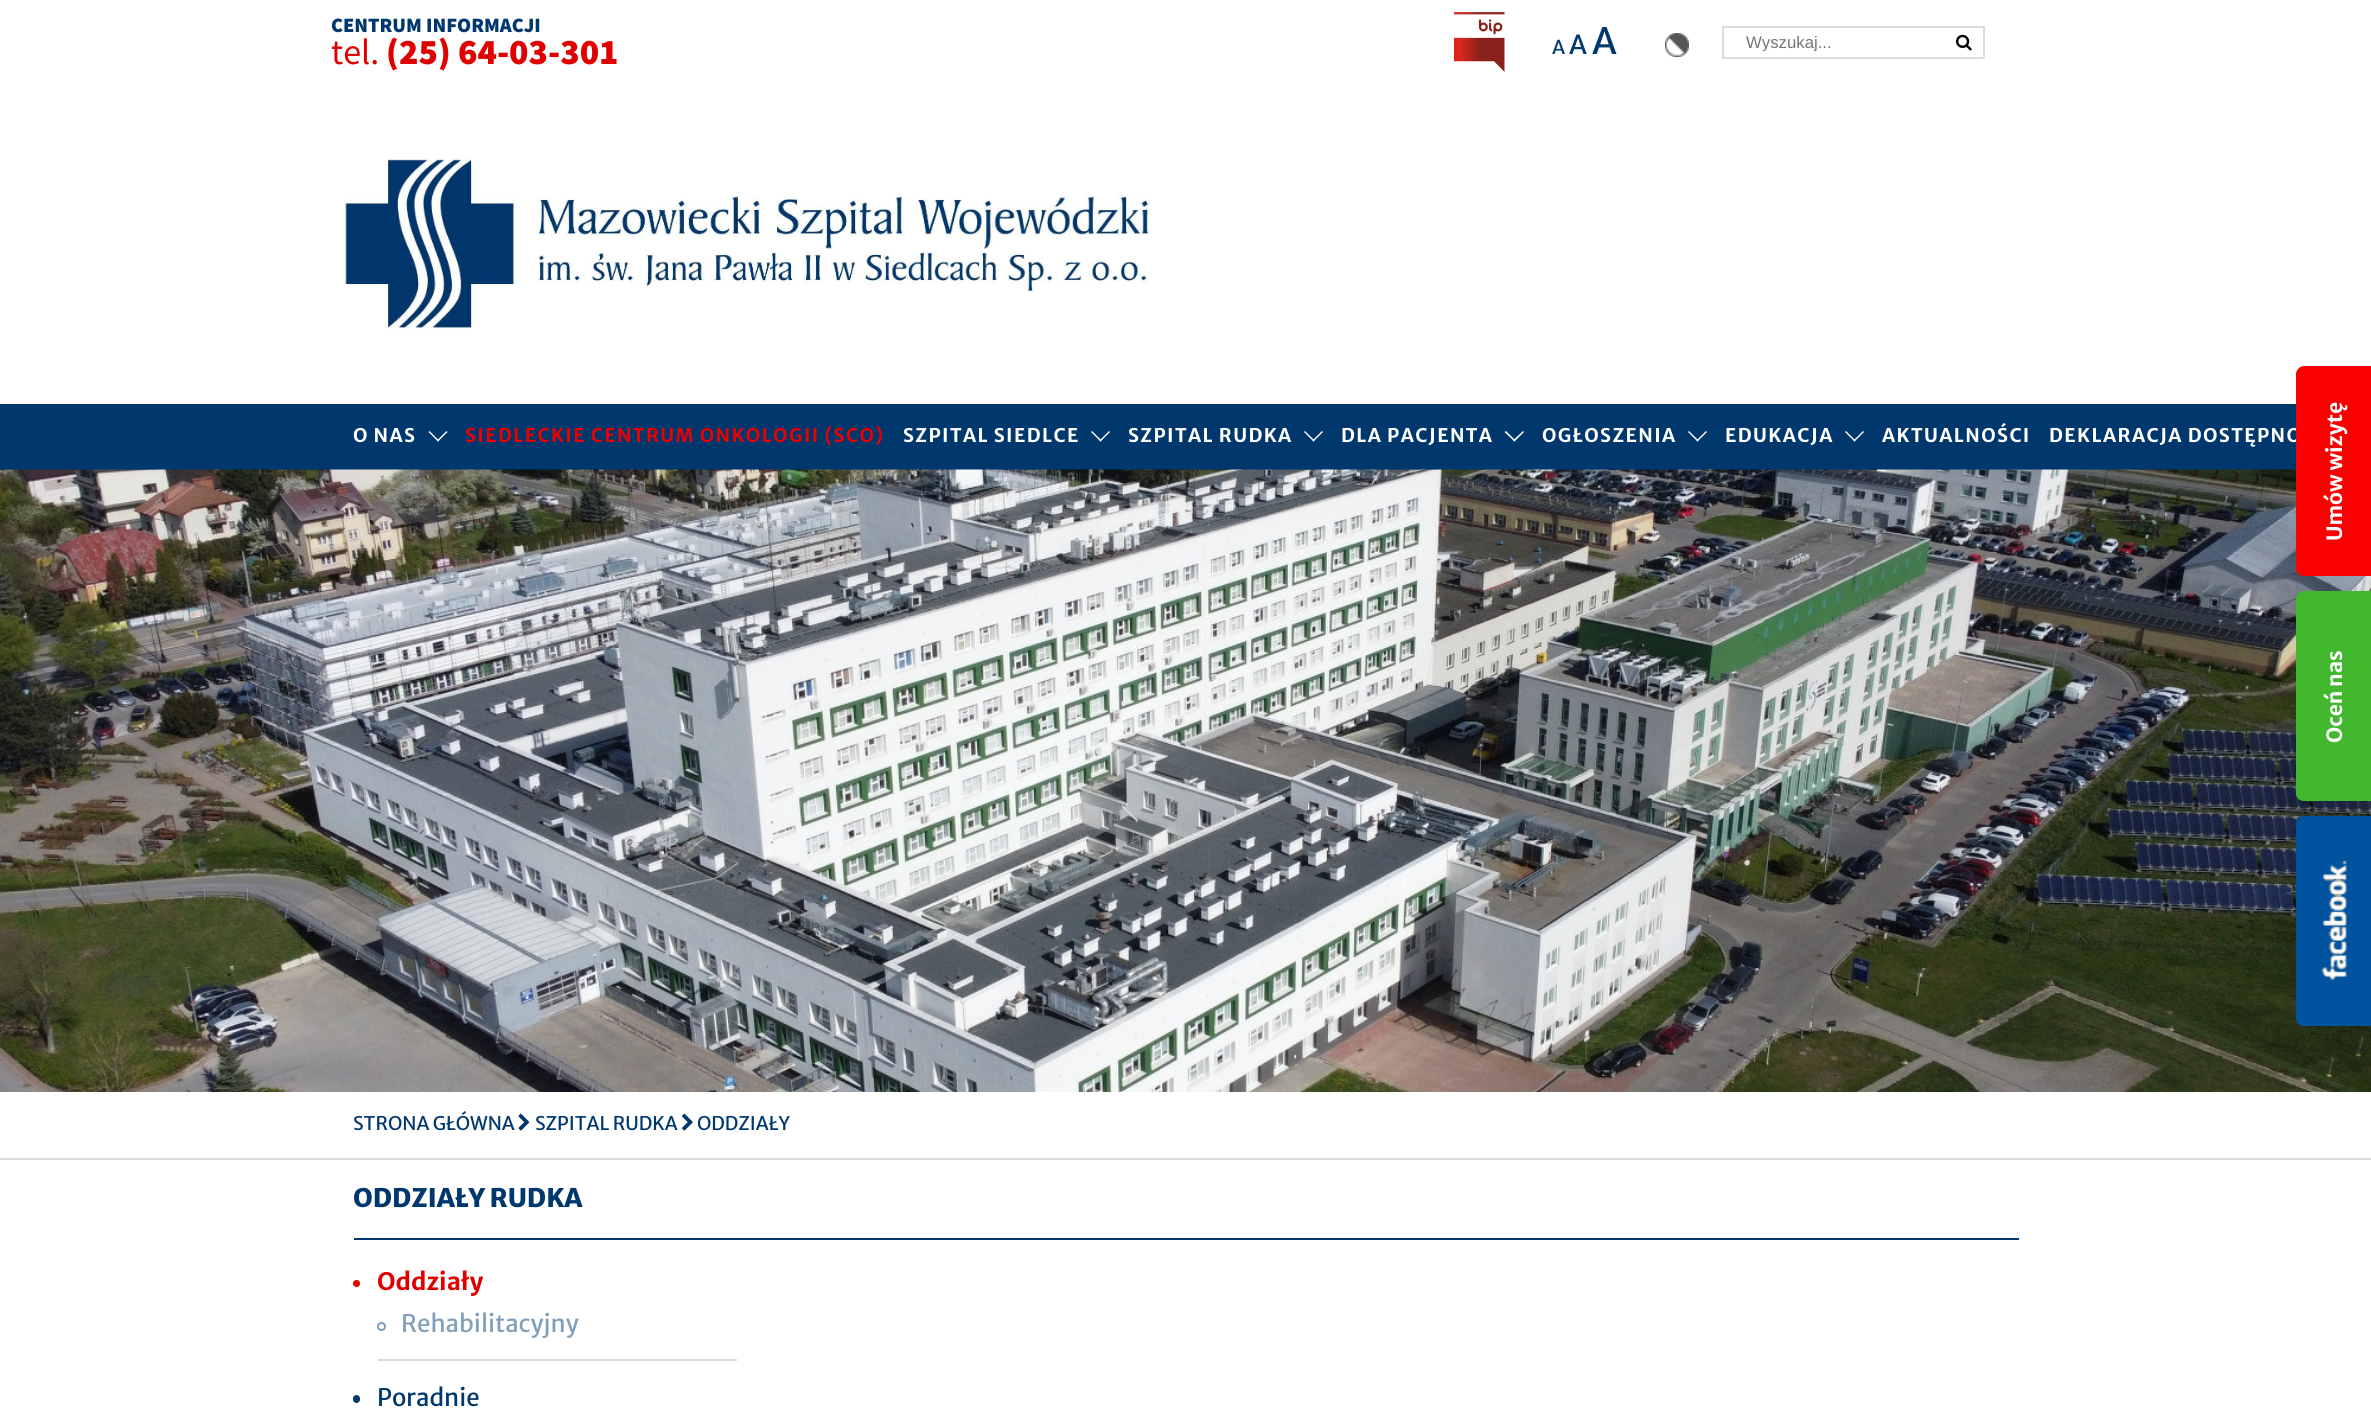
#include <cairo.h>
#include <math.h>
#include <stddef.h>


static void rgb(cairo_t *cr, int r, int g, int b)
{
	cairo_set_source_rgb(cr, r / 255.0, g / 255.0, b / 255.0);
}

static void face(cairo_t *cr, const char *family, double size, int italic, int bold)
{
	cairo_select_font_face(cr, family, italic ? CAIRO_FONT_SLANT_ITALIC : CAIRO_FONT_SLANT_NORMAL,
		bold ? CAIRO_FONT_WEIGHT_BOLD : CAIRO_FONT_WEIGHT_NORMAL);
	cairo_set_font_size(cr, size);
}

static void label(cairo_t *cr, double x, double y, const char *s)
{
	cairo_move_to(cr, x, y);
	cairo_show_text(cr, s);
}

static void tracked(cairo_t *cr, double x, double y, const char *s, double letter, double word)
{
	cairo_move_to(cr, x, y);
	while (*s) {
		char ch[5] = {0};
		int n = 0;
		do ch[n++] = *s++; while ((*s & 0xC0) == 0x80);
		cairo_show_text(cr, ch);
		cairo_rel_move_to(cr, letter + word * (*ch == ' '), 0);
	}
}

static void rect(cairo_t *cr, double x, double y, double w, double h)
{
	cairo_rectangle(cr, x, y, w, h);
	cairo_fill(cr);
}

static void rrect(cairo_t *cr, double x, double y, double w, double h, double r)
{
	cairo_new_sub_path(cr);
	cairo_arc(cr, x + w - r, y + h - r, r, 0, M_PI / 2);
	cairo_arc(cr, x + r, y + h - r, r, M_PI / 2, M_PI);
	cairo_arc(cr, x + r, y + r, r, M_PI, 1.5 * M_PI);
	cairo_arc(cr, x + w - r, y + r, r, 1.5 * M_PI, 2 * M_PI);
	cairo_close_path(cr);
}

static void image(cairo_t *cr, const char *path, double x, double y, double w, double h)
{
	cairo_surface_t *image = cairo_image_surface_create_from_png(path);
	cairo_save(cr);
	cairo_set_source_surface(cr, image, x, y);
	cairo_rectangle(cr, x, y, w, h);
	cairo_fill(cr);
	cairo_restore(cr);
	cairo_surface_destroy(image);
}

static void draw(cairo_t *cr) {
	rgb(cr, 255, 255, 255);
	cairo_paint(cr);
	face(cr, "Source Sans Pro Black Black", 20.4, 0, 0);
	rgb(cr, 0, 55, 109);
	label(cr, 331, 32, "CENTRUM INFORMACJI");
	face(cr, "Source Sans Pro", 36, 0, 0);
	rgb(cr, 224, 0, 0);
	label(cr, 331, 64, "tel.");
	face(cr, "Source Sans Pro Black Black", 36, 0, 0);
	label(cr, 386, 64, "(25) 64-03-301");
	image(cr, "image0.png", 1454, 12, 51, 60);
	face(cr, "Merriweather Sans", 19, 0, 0);
	rgb(cr, 0, 55, 109);
	label(cr, 1552, 54, "A");
	face(cr, "Merriweather Sans", 26, 0, 0);
	label(cr, 1569, 54, "A");
	face(cr, "Merriweather Sans", 36, 0, 0);
	label(cr, 1592, 54, "A");
	image(cr, "image1.png", 1665, 33, 24, 24);
	cairo_rectangle(cr, 1723, 27, 261, 31);
	rgb(cr, 219, 219, 219);
	cairo_stroke(cr);
	cairo_save(cr);
	cairo_rectangle(cr, 1746, 33, 194, 18);
	cairo_clip(cr);
	face(cr, "Liberation Sans", 16.75, 0, 0);
	rgb(cr, 117, 117, 117);
	label(cr, 1746, 48, "Wyszukaj...");
	cairo_restore(cr);
	image(cr, "image2.png", 1956, 34, 16, 17);
	image(cr, "image3.png", 345, 158, 805, 173);
	rgb(cr, 0, 55, 109);
	rect(cr, 0, 404, 2296, 66);
	face(cr, "Merriweather Sans", 18.75, 0, 1);
	rgb(cr, 255, 255, 255);
	tracked(cr, 353, 442, "O NAS", 1.4, 0);
	cairo_new_path(cr);
	cairo_move_to(cr, 437, 440.5);
	cairo_line_to(cr, 446.5, 431);
	cairo_line_to(cr, 447.5, 432);
	cairo_line_to(cr, 438, 441.5);
	cairo_close_path(cr);
	cairo_fill(cr);
	cairo_new_path(cr);
	cairo_move_to(cr, 428.5, 432);
	cairo_line_to(cr, 429.5, 431);
	cairo_line_to(cr, 439, 440.5);
	cairo_line_to(cr, 438, 441.5);
	cairo_close_path(cr);
	cairo_fill(cr);
	rgb(cr, 234, 0, 0);
	tracked(cr, 465, 442, "SIEDLECKIE CENTRUM ONKOLOGII (SCO)", 1.4, 0);
	rgb(cr, 255, 255, 255);
	tracked(cr, 903, 442, "SZPITAL SIEDLCE", 1.4, 0);
	cairo_new_path(cr);
	cairo_move_to(cr, 1099.5, 440.5);
	cairo_line_to(cr, 1109, 431);
	cairo_line_to(cr, 1110, 432);
	cairo_line_to(cr, 1100.5, 441.5);
	cairo_close_path(cr);
	cairo_fill(cr);
	cairo_new_path(cr);
	cairo_move_to(cr, 1091, 432);
	cairo_line_to(cr, 1092, 431);
	cairo_line_to(cr, 1101.5, 440.5);
	cairo_line_to(cr, 1100.5, 441.5);
	cairo_close_path(cr);
	cairo_fill(cr);
	tracked(cr, 1128, 442, "SZPITAL RUDKA", 1.4, 0);
	cairo_new_path(cr);
	cairo_move_to(cr, 1312.5, 440.5);
	cairo_line_to(cr, 1322, 431);
	cairo_line_to(cr, 1323, 432);
	cairo_line_to(cr, 1313.5, 441.5);
	cairo_close_path(cr);
	cairo_fill(cr);
	cairo_new_path(cr);
	cairo_move_to(cr, 1304, 432);
	cairo_line_to(cr, 1305, 431);
	cairo_line_to(cr, 1314.5, 440.5);
	cairo_line_to(cr, 1313.5, 441.5);
	cairo_close_path(cr);
	cairo_fill(cr);
	tracked(cr, 1341, 442, "DLA PACJENTA", 1.4, 0);
	cairo_new_path(cr);
	cairo_move_to(cr, 1513, 440.5);
	cairo_line_to(cr, 1523, 431);
	cairo_line_to(cr, 1524, 432);
	cairo_line_to(cr, 1514.5, 441.5);
	cairo_close_path(cr);
	cairo_fill(cr);
	cairo_new_path(cr);
	cairo_move_to(cr, 1504.5, 432);
	cairo_line_to(cr, 1506, 431);
	cairo_line_to(cr, 1515.5, 440.5);
	cairo_line_to(cr, 1514.5, 441.5);
	cairo_close_path(cr);
	cairo_fill(cr);
	tracked(cr, 1542, 442, "OGŁOSZENIA", 1.4, 0);
	cairo_new_path(cr);
	cairo_move_to(cr, 1696.5, 440.5);
	cairo_line_to(cr, 1706, 431);
	cairo_line_to(cr, 1707, 432);
	cairo_line_to(cr, 1697.5, 441.5);
	cairo_close_path(cr);
	cairo_fill(cr);
	cairo_new_path(cr);
	cairo_move_to(cr, 1688, 432);
	cairo_line_to(cr, 1689, 431);
	cairo_line_to(cr, 1698.5, 440.5);
	cairo_line_to(cr, 1697.5, 441.5);
	cairo_close_path(cr);
	cairo_fill(cr);
	tracked(cr, 1725, 442, "EDUKACJA", 1.4, 0);
	cairo_new_path(cr);
	cairo_move_to(cr, 1853.5, 440.5);
	cairo_line_to(cr, 1863, 431);
	cairo_line_to(cr, 1864, 432);
	cairo_line_to(cr, 1854.5, 441.5);
	cairo_close_path(cr);
	cairo_fill(cr);
	cairo_new_path(cr);
	cairo_move_to(cr, 1845, 432);
	cairo_line_to(cr, 1846, 431);
	cairo_line_to(cr, 1855.5, 440.5);
	cairo_line_to(cr, 1854.5, 441.5);
	cairo_close_path(cr);
	cairo_fill(cr);
	tracked(cr, 1882, 442, "AKTUALNOŚCI", 1.4, 0);
	tracked(cr, 2049, 442, "DEKLARACJA DOSTĘPNO", 1.4, 0);
	image(cr, "image5.png", 0, 469, 2371, 623);
	rgb(cr, 250, 1, 1);
	cairo_new_path(cr);
	cairo_move_to(cr, 2296, 569);
	cairo_line_to(cr, 2296, 374);
	cairo_curve_to(cr, 2296, 370, 2300, 366, 2304, 366);
	cairo_line_to(cr, 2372, 366);
	cairo_line_to(cr, 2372, 576);
	cairo_line_to(cr, 2304, 576);
	cairo_curve_to(cr, 2300, 576, 2296, 573, 2296, 569);
	cairo_close_path(cr);
	cairo_fill(cr);
	face(cr, "Merriweather Sans", 21, 0, 1);
	rgb(cr, 255, 255, 255);
	cairo_save(cr);
	cairo_translate(cr, 2342, 541);
	cairo_rotate(cr, -90 * M_PI / 180);
	label(cr, 0, 0, "Umów wizytę");
	cairo_restore(cr);
	rgb(cr, 65, 184, 45);
	cairo_new_path(cr);
	cairo_move_to(cr, 2296, 794);
	cairo_line_to(cr, 2296, 599);
	cairo_curve_to(cr, 2296, 595, 2300, 591, 2304, 591);
	cairo_line_to(cr, 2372, 591);
	cairo_line_to(cr, 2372, 801);
	cairo_line_to(cr, 2304, 801);
	cairo_curve_to(cr, 2300, 801, 2296, 798, 2296, 794);
	cairo_close_path(cr);
	cairo_fill(cr);
	rgb(cr, 255, 255, 255);
	cairo_save(cr);
	cairo_translate(cr, 2342, 743);
	cairo_rotate(cr, -90 * M_PI / 180);
	label(cr, 0, 0, "Oceń nas");
	cairo_restore(cr);
	rgb(cr, 0, 84, 159);
	cairo_new_path(cr);
	cairo_move_to(cr, 2296, 1019);
	cairo_line_to(cr, 2296, 824);
	cairo_curve_to(cr, 2296, 820, 2300, 816, 2304, 816);
	cairo_line_to(cr, 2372, 816);
	cairo_line_to(cr, 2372, 1026);
	cairo_line_to(cr, 2304, 1026);
	cairo_curve_to(cr, 2300, 1026, 2296, 1023, 2296, 1019);
	cairo_close_path(cr);
	cairo_fill(cr);
	image(cr, "image4.png", 2321, 861, 26, 119);
	rgb(cr, 219, 219, 219);
	rect(cr, 0, 1158, 2371, 2);
	face(cr, "Merriweather Sans", 18.75, 0, 0);
	rgb(cr, 0, 55, 109);
	label(cr, 353, 1130, "STRONA GŁÓWNA");
	image(cr, "image6.png", 518, 1113, 12, 18);
	label(cr, 535, 1130, "SZPITAL RUDKA");
	image(cr, "image7.png", 682, 1113, 11, 18);
	label(cr, 697, 1130, "ODDZIAŁY");
	rect(cr, 354, 1238, 1665, 2);
	face(cr, "Merriweather Sans ExtraBold", 25.5, 0, 0);
	label(cr, 353, 1207, "ODDZIAŁY RUDKA");
	rgb(cr, 219, 219, 219);
	rect(cr, 378, 1359, 359, 2);
	rgb(cr, 224, 0, 0);
	cairo_new_path(cr);
	cairo_arc(cr, 356.5, 1283.5, 3.5, 0, 2 * M_PI);
	cairo_fill(cr);
	face(cr, "Merriweather Sans", 24, 0, 1);
	label(cr, 377, 1290, "Oddziały");
	cairo_new_path(cr);
	cairo_arc(cr, 381.5, 1326.5, 3.5, 0, 2 * M_PI);
	rgb(cr, 127, 159, 189);
	cairo_stroke(cr);
	face(cr, "Merriweather Sans", 24, 0, 0);
	label(cr, 401, 1332, "Rehabilitacyjny");
	rgb(cr, 0, 55, 109);
	rrect(cr, 353, 1395, 7, 8, 3.5);
	cairo_fill(cr);
	label(cr, 377, 1406, "Poradnie");
}

int main(void) {
	cairo_surface_t *surface = cairo_image_surface_create(CAIRO_FORMAT_RGB24, 2371, 1408);
	cairo_t *cr = cairo_create(surface);
	cairo_font_options_t *options = cairo_font_options_create();
	cairo_font_options_set_hint_metrics(options, CAIRO_HINT_METRICS_OFF);
	cairo_font_options_set_hint_style(options, CAIRO_HINT_STYLE_NONE);
	cairo_set_font_options(cr, options);
	cairo_set_miter_limit(cr, 4);
	draw(cr);
	cairo_surface_write_to_png(surface, "render.png");
	cairo_font_options_destroy(options);
	cairo_destroy(cr);
	cairo_surface_destroy(surface);
	return 0;
}
